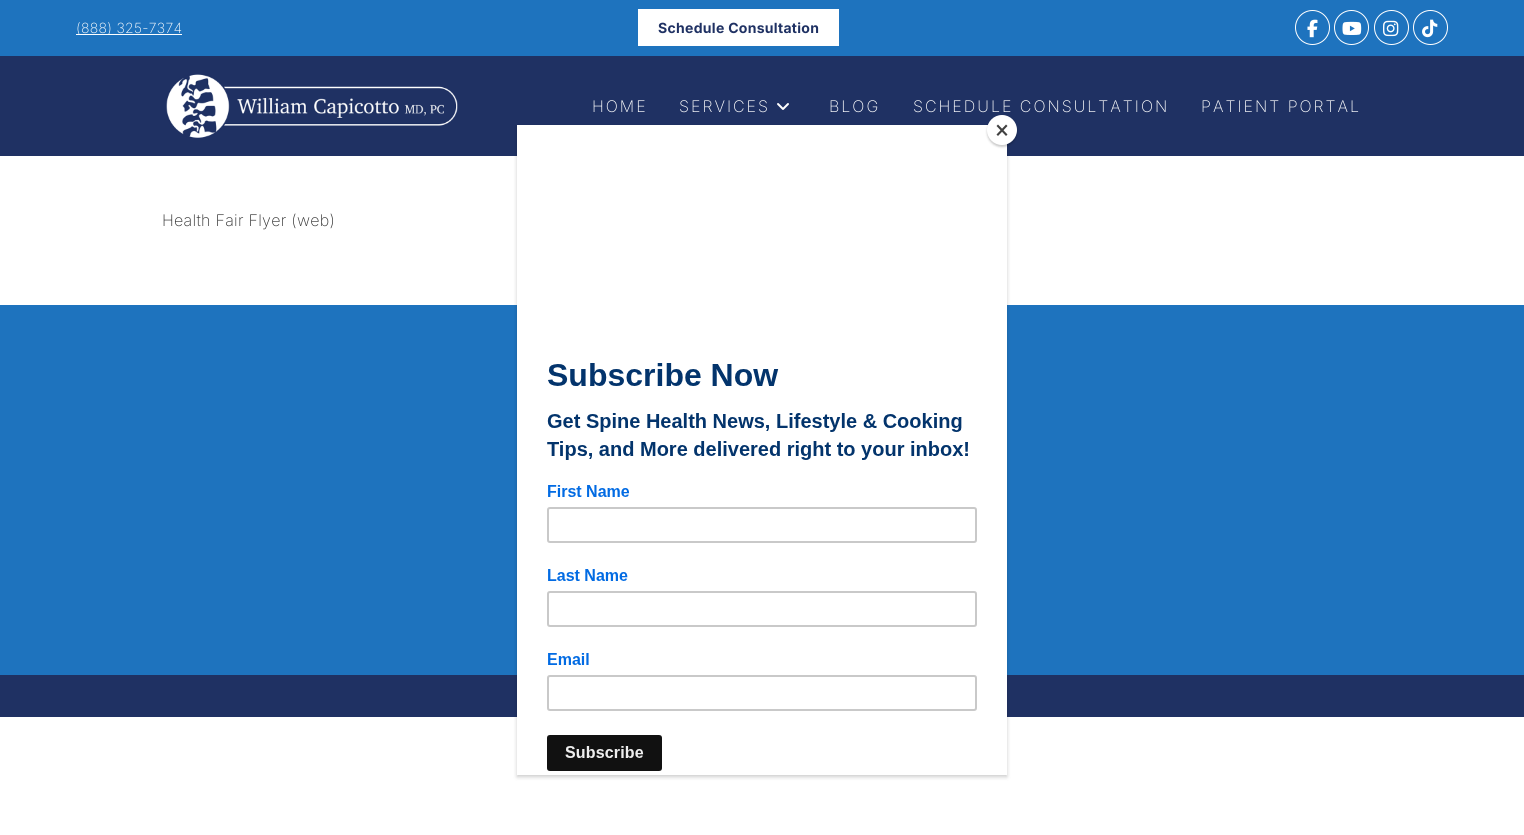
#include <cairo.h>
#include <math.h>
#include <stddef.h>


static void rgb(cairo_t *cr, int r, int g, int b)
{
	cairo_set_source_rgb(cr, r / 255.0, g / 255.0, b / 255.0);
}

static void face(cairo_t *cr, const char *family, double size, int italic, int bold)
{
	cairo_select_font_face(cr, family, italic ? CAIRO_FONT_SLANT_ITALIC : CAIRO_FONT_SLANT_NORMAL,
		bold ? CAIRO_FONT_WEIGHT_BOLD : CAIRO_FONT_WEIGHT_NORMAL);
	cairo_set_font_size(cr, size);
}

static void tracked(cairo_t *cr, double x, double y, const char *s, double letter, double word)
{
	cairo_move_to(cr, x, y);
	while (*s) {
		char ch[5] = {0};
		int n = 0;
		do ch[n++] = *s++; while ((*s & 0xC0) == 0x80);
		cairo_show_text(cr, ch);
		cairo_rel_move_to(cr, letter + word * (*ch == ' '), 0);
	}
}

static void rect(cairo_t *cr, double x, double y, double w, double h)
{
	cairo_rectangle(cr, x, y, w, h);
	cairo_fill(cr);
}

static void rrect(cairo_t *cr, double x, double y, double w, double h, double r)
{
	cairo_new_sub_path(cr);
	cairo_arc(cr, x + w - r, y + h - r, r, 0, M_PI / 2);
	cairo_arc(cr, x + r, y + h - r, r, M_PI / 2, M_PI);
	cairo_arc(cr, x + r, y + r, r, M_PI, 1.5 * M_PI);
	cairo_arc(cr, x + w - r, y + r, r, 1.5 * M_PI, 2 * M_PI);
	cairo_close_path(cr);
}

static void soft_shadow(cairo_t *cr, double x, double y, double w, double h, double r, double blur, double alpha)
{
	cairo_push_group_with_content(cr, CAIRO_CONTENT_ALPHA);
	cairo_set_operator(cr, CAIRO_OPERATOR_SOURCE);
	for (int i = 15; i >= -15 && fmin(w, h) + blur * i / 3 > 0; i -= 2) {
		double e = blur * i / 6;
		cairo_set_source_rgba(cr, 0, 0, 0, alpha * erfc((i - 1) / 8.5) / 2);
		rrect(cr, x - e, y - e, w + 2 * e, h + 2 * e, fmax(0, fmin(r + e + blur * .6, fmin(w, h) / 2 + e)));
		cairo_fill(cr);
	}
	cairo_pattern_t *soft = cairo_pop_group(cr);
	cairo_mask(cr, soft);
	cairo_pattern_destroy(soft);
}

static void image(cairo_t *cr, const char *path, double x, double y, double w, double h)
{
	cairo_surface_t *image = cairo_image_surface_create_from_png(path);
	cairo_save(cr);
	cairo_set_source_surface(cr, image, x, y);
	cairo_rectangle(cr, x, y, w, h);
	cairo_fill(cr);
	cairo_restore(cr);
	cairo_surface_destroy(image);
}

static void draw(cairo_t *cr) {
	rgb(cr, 255, 255, 255);
	cairo_paint(cr);
	rgb(cr, 30, 115, 190);
	rect(cr, 0, 0, 1524, 56);
	rgb(cr, 255, 255, 255);
	rect(cr, 76, 34, 106, 1);
	face(cr, "Inter ExtraLight", 14, 0, 0);
	tracked(cr, 76, 33, "(888) 325-7374", 0.3, 0);
	rect(cr, 638, 9, 201, 37);
	face(cr, "Inter", 14, 0, 1);
	rgb(cr, 31, 49, 99);
	tracked(cr, 658, 33, "Schedule Consultation", 0.3, 0);
	cairo_new_path(cr);
	cairo_arc(cr, 1312.5, 27.5, 17, 0, 2 * M_PI);
	rgb(cr, 255, 255, 255);
	cairo_set_line_width(cr, 1);
	cairo_stroke(cr);
	image(cr, "image0.png", 1307, 19, 11, 19);
	cairo_arc(cr, 1351.5, 27.5, 17, 0, 2 * M_PI);
	cairo_stroke(cr);
	image(cr, "image1.png", 1342, 21, 20, 14);
	cairo_arc(cr, 1391.5, 27.5, 17, 0, 2 * M_PI);
	cairo_stroke(cr);
	image(cr, "image2.png", 1383, 20, 16, 17);
	cairo_arc(cr, 1430.5, 27.5, 17, 0, 2 * M_PI);
	cairo_stroke(cr);
	image(cr, "image3.png", 1422, 19, 16, 19);
	rgb(cr, 31, 49, 99);
	rect(cr, 0, 56, 1524, 100);
	image(cr, "image4.png", 166, 74, 292, 64);
	face(cr, "Inter ExtraLight", 16, 0, 0);
	rgb(cr, 255, 255, 255);
	tracked(cr, 592, 112, "HOME", 2, 0);
	tracked(cr, 679, 112, "SERVICES", 2, 0);
	image(cr, "image5.png", 777, 103, 12, 7);
	tracked(cr, 829, 112, "BLOG", 2, 0);
	tracked(cr, 913, 112, "SCHEDULE CONSULTATION", 2, 0);
	tracked(cr, 1201, 112, "PATIENT PORTAL", 2, 0);
	rgb(cr, 51, 51, 51);
	tracked(cr, 162, 226, "Health Fair Flyer (web)", 0.3, 0);
	rgb(cr, 30, 115, 190);
	rect(cr, 0, 305, 1524, 370);
	rgb(cr, 31, 49, 99);
	rect(cr, 0, 675, 1524, 42);
	cairo_save(cr);
	cairo_set_fill_rule(cr, CAIRO_FILL_RULE_EVEN_ODD);
	cairo_new_path(cr);
	cairo_move_to(cr, 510, 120);
	cairo_line_to(cr, 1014, 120);
	cairo_line_to(cr, 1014, 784);
	cairo_line_to(cr, 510, 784);
	cairo_close_path(cr);
	cairo_move_to(cr, 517, 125);
	cairo_line_to(cr, 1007, 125);
	cairo_line_to(cr, 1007, 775);
	cairo_line_to(cr, 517, 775);
	cairo_close_path(cr);
	cairo_clip(cr);
	rgb(cr, 0, 0, 0);
	soft_shadow(cr, 517, 127, 490, 650, 0, 2, 0.2);
	cairo_restore(cr);
	image(cr, "image6.png", 517, 125, 490, 646);
	rgb(cr, 0, 0, 0);
	soft_shadow(cr, 987, 117, 30, 30, 15, 1, 0.2);
	rgb(cr, 255, 255, 255);
	cairo_arc(cr, 1002, 130, 15, 0, 2 * M_PI);
	cairo_fill(cr);
	rgb(cr, 65, 65, 65);
	cairo_new_path(cr);
	cairo_move_to(cr, 1006, 124.5);
	cairo_line_to(cr, 1007.5, 126);
	cairo_line_to(cr, 998, 136);
	cairo_line_to(cr, 996.5, 134.5);
	cairo_close_path(cr);
	cairo_fill(cr);
	cairo_new_path(cr);
	cairo_move_to(cr, 996.5, 126);
	cairo_line_to(cr, 998, 124.5);
	cairo_line_to(cr, 1007.5, 134.5);
	cairo_line_to(cr, 1006, 136);
	cairo_close_path(cr);
	cairo_fill(cr);
}

int main(void) {
	cairo_surface_t *surface = cairo_image_surface_create(CAIRO_FORMAT_RGB24, 1524, 835);
	cairo_t *cr = cairo_create(surface);
	cairo_font_options_t *options = cairo_font_options_create();
	cairo_font_options_set_hint_metrics(options, CAIRO_HINT_METRICS_OFF);
	cairo_font_options_set_hint_style(options, CAIRO_HINT_STYLE_NONE);
	cairo_set_font_options(cr, options);
	cairo_set_miter_limit(cr, 4);
	draw(cr);
	cairo_surface_write_to_png(surface, "render.png");
	cairo_font_options_destroy(options);
	cairo_destroy(cr);
	cairo_surface_destroy(surface);
	return 0;
}
